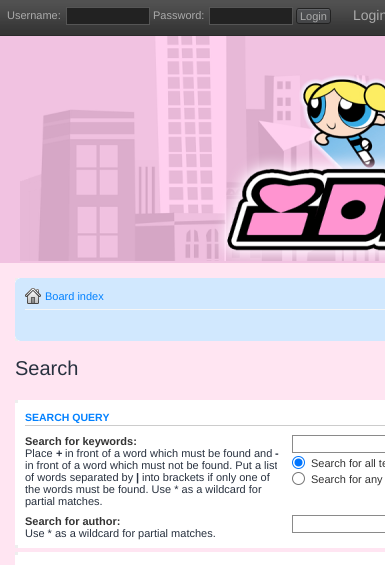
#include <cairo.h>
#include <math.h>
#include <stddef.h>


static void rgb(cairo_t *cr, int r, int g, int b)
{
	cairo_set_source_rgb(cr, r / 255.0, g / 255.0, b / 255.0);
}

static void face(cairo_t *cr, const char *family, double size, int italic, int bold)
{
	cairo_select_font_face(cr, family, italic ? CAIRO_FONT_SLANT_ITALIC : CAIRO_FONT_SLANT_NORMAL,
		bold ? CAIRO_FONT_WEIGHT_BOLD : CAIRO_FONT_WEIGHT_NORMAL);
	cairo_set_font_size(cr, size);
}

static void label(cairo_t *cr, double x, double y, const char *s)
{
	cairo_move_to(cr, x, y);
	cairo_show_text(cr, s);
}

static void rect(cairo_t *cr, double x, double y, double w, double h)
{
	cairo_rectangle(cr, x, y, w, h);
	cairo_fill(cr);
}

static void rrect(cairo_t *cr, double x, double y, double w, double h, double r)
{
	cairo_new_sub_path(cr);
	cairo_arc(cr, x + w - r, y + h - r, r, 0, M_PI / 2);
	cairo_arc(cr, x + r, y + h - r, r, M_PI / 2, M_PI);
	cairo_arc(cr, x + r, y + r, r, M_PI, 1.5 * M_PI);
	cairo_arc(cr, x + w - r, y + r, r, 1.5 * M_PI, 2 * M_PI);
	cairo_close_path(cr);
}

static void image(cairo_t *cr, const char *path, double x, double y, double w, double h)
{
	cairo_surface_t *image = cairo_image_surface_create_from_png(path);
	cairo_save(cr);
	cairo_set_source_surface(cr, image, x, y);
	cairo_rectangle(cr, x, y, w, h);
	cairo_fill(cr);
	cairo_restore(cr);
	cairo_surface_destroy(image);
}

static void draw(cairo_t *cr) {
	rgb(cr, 255, 229, 242);
	cairo_paint(cr);
	image(cr, "image0.png", 0, 0, 385, 36);
	face(cr, "Liberation Sans", 11, 0, 0);
	rgb(cr, 170, 170, 170);
	label(cr, 7, 19, "Username:");
	rgb(cr, 34, 34, 34);
	cairo_rectangle(cr, 66.5, 7.5, 83, 17);
	cairo_fill_preserve(cr);
	rgb(cr, 85, 85, 85);
	cairo_set_line_width(cr, 1);
	cairo_stroke(cr);
	rgb(cr, 170, 170, 170);
	label(cr, 153, 19, "Password:");
	rgb(cr, 34, 34, 34);
	cairo_rectangle(cr, 209.5, 7.5, 83, 17);
	cairo_fill_preserve(cr);
	rgb(cr, 85, 85, 85);
	cairo_stroke(cr);
	image(cr, "image1.png", 296, 9, 35, 15);
	rrect(cr, 296.5, 8.5, 34, 15, 2.5);
	rgb(cr, 34, 34, 34);
	cairo_stroke(cr);
	rgb(cr, 170, 170, 170);
	label(cr, 300, 20, "Login");
	face(cr, "Liberation Sans", 14, 0, 0);
	label(cr, 353, 20, "Login");
	rgb(cr, 241, 194, 225);
	rect(cr, 0, 36, 385, 227);
	image(cr, "image2.png", 20, 36, 365, 225);
	rgb(cr, 209, 232, 254);
	rect(cr, 15, 278, 370, 63);
	image(cr, "image3.png", 15, 278, 5, 5);
	rgb(cr, 245, 245, 245);
	rect(cr, 25, 309, 360, 1);
	image(cr, "image4.png", 25, 288, 16, 16);
	face(cr, "Liberation Sans", 11, 0, 0);
	rgb(cr, 2, 129, 255);
	label(cr, 45, 300, "Board index");
	image(cr, "image5.png", 15, 336, 5, 5);
	face(cr, "Liberation Sans", 20, 0, 0);
	rgb(cr, 40, 49, 63);
	label(cr, 15, 375, "Search");
	rgb(cr, 255, 255, 255);
	rect(cr, 15, 400, 370, 148);
	rgb(cr, 238, 238, 238);
	rect(cr, 15, 400, 3, 3);
	rgb(cr, 204, 204, 204);
	rect(cr, 25, 425, 360, 1);
	face(cr, "Liberation Sans", 10.5, 0, 1);
	rgb(cr, 2, 129, 255);
	label(cr, 25, 421, "SEARCH QUERY");
	face(cr, "Liberation Sans", 11, 0, 1);
	rgb(cr, 51, 51, 51);
	label(cr, 25, 445, "Search for keywords:");
	face(cr, "Liberation Sans", 11, 0, 0);
	rgb(cr, 40, 49, 63);
	label(cr, 25, 457, "Place");
	face(cr, "Liberation Sans", 11, 0, 1);
	label(cr, 56, 457, "+");
	face(cr, "Liberation Sans", 11, 0, 0);
	label(cr, 65, 457, "in front of a word which must be found and");
	face(cr, "Liberation Sans", 11, 0, 1);
	label(cr, 275, 457, "-");
	face(cr, "Liberation Sans", 11, 0, 0);
	label(cr, 25, 469, "in front of a word which must not be found. Put a list");
	label(cr, 25, 481, "of words separated by");
	face(cr, "Liberation Sans", 11, 0, 1);
	label(cr, 136, 481, "|");
	face(cr, "Liberation Sans", 11, 0, 0);
	label(cr, 142, 481, "into brackets if only one of");
	label(cr, 25, 493, "the words must be found. Use * as a wildcard for");
	label(cr, 25, 505, "partial matches.");
	cairo_rectangle(cr, 292.5, 435.5, 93, 17);
	rgb(cr, 138, 138, 138);
	cairo_stroke(cr);
	cairo_arc(cr, 298.5, 462.5, 6, 0, 2 * M_PI);
	rgb(cr, 0, 117, 255);
	cairo_stroke(cr);
	cairo_arc(cr, 298.5, 462.5, 4, 0, 2 * M_PI);
	cairo_fill(cr);
	rgb(cr, 51, 51, 51);
	label(cr, 311, 467, "Search for all te");
	cairo_new_path(cr);
	cairo_arc(cr, 298.5, 478.5, 6, 0, 2 * M_PI);
	rgb(cr, 118, 118, 118);
	cairo_stroke(cr);
	rgb(cr, 51, 51, 51);
	label(cr, 311, 483, "Search for any");
	face(cr, "Liberation Sans", 11, 0, 1);
	label(cr, 25, 525, "Search for author:");
	face(cr, "Liberation Sans", 11, 0, 0);
	rgb(cr, 40, 49, 63);
	label(cr, 25, 537, "Use * as a wildcard for partial matches.");
	cairo_rectangle(cr, 292.5, 515.5, 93, 17);
	rgb(cr, 138, 138, 138);
	cairo_stroke(cr);
	rgb(cr, 238, 238, 238);
	rect(cr, 15, 545, 3, 3);
	rgb(cr, 255, 255, 255);
	rect(cr, 15, 552, 370, 13);
	rgb(cr, 238, 238, 238);
	rect(cr, 15, 552, 3, 3);
}

int main(void) {
	cairo_surface_t *surface = cairo_image_surface_create(CAIRO_FORMAT_RGB24, 385, 565);
	cairo_t *cr = cairo_create(surface);
	cairo_font_options_t *options = cairo_font_options_create();
	cairo_font_options_set_hint_metrics(options, CAIRO_HINT_METRICS_OFF);
	cairo_font_options_set_hint_style(options, CAIRO_HINT_STYLE_NONE);
	cairo_set_font_options(cr, options);
	cairo_set_miter_limit(cr, 4);
	draw(cr);
	cairo_surface_write_to_png(surface, "render.png");
	cairo_font_options_destroy(options);
	cairo_destroy(cr);
	cairo_surface_destroy(surface);
	return 0;
}
